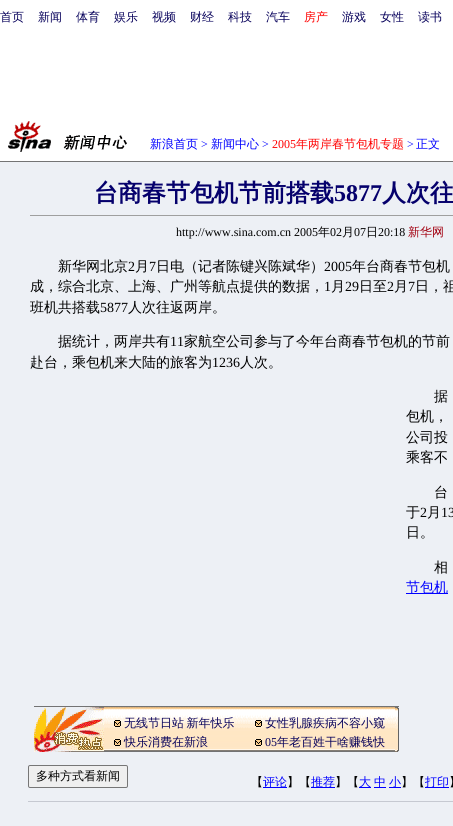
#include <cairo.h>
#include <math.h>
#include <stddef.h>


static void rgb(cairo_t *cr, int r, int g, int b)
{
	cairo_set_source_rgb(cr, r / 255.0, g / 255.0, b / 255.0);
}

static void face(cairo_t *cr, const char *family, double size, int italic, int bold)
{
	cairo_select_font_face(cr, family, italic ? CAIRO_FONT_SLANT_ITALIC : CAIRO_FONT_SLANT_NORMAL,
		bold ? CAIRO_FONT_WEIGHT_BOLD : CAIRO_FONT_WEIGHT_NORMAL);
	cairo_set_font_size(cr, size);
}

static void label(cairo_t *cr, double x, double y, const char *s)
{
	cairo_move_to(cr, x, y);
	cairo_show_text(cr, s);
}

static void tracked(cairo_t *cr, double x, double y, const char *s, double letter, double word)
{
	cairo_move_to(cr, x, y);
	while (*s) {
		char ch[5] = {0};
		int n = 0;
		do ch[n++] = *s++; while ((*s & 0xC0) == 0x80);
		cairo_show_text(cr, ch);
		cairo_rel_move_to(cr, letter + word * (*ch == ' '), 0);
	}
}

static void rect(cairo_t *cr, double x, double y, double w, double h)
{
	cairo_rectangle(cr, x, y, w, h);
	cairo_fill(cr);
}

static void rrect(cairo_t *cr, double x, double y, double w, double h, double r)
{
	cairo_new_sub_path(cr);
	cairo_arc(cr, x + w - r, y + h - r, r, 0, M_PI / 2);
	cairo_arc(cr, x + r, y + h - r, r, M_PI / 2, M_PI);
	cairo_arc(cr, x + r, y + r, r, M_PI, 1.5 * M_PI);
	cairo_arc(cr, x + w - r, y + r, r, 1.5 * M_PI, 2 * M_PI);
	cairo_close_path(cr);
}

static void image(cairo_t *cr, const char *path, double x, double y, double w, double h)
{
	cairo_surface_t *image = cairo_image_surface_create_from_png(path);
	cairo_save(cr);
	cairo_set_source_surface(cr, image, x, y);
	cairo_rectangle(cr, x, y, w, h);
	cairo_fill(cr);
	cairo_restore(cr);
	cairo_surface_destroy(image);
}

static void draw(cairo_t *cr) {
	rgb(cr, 255, 255, 255);
	cairo_paint(cr);
	face(cr, "WenQuanYi Zen Hei Medium", 12, 0, 0);
	rgb(cr, 7, 1, 91);
	label(cr, 0, 21, "首页");
	label(cr, 38, 21, "新闻");
	label(cr, 76, 21, "体育");
	label(cr, 114, 21, "娱乐");
	label(cr, 152, 21, "视频");
	label(cr, 190, 21, "财经");
	label(cr, 228, 21, "科技");
	label(cr, 266, 21, "汽车");
	rgb(cr, 255, 0, 0);
	label(cr, 304, 21, "房产");
	rgb(cr, 7, 1, 91);
	label(cr, 342, 21, "游戏");
	label(cr, 380, 21, "女性");
	label(cr, 418, 21, "读书");
	image(cr, "image0.png", 8, 121, 119, 31);
	rgb(cr, 0, 0, 255);
	label(cr, 150, 148, "新浪首页");
	face(cr, "Liberation Serif", 12, 0, 0);
	label(cr, 201, 148, ">");
	face(cr, "WenQuanYi Zen Hei Medium", 12, 0, 0);
	label(cr, 211, 148, "新闻中心");
	face(cr, "Liberation Serif", 12, 0, 0);
	label(cr, 262, 148, ">");
	rgb(cr, 255, 0, 0);
	label(cr, 272, 148, "2005");
	face(cr, "WenQuanYi Zen Hei Medium", 12, 0, 0);
	label(cr, 296, 148, "年两岸春节包机专题");
	face(cr, "Liberation Serif", 12, 0, 0);
	rgb(cr, 0, 0, 255);
	label(cr, 407, 148, ">");
	face(cr, "WenQuanYi Zen Hei Medium", 12, 0, 0);
	label(cr, 416, 148, "正文");
	rgb(cr, 116, 116, 116);
	rect(cr, 0, 161, 453, 1);
	rgb(cr, 237, 240, 245);
	rect(cr, 0, 162, 453, 664);
	face(cr, "WenQuanYi Zen Hei", 24, 0, 1);
	rgb(cr, 5, 0, 108);
	label(cr, 94, 201, "台商春节包机节前搭载");
	face(cr, "Liberation Serif", 24, 0, 1);
	label(cr, 334, 201, "5877");
	face(cr, "WenQuanYi Zen Hei", 24, 0, 1);
	label(cr, 382, 201, "人次往");
	rgb(cr, 159, 159, 159);
	rect(cr, 30, 215, 423, 1);
	face(cr, "Liberation Serif", 12, 0, 0);
	rgb(cr, 0, 0, 0);
	label(cr, 176, 236, "http://www.sina.com.cn 2005");
	face(cr, "WenQuanYi Zen Hei Medium", 12, 0, 0);
	label(cr, 318, 236, "年");
	face(cr, "Liberation Serif", 12, 0, 0);
	label(cr, 330, 236, "02");
	face(cr, "WenQuanYi Zen Hei Medium", 12, 0, 0);
	label(cr, 342, 236, "月");
	face(cr, "Liberation Serif", 12, 0, 0);
	label(cr, 354, 236, "07");
	face(cr, "WenQuanYi Zen Hei Medium", 12, 0, 0);
	label(cr, 366, 236, "日");
	face(cr, "Liberation Serif", 12, 0, 0);
	label(cr, 378, 236, "20:18");
	face(cr, "WenQuanYi Zen Hei Medium", 12, 0, 0);
	rgb(cr, 162, 0, 16);
	label(cr, 408, 236, "新华网");
	face(cr, "WenQuanYi Zen Hei Medium", 14, 0, 0);
	rgb(cr, 0, 0, 0);
	label(cr, 58, 271, "新华网北京");
	face(cr, "Liberation Serif", 14, 0, 0);
	label(cr, 128, 271, "2");
	face(cr, "WenQuanYi Zen Hei Medium", 14, 0, 0);
	label(cr, 135, 271, "月");
	face(cr, "Liberation Serif", 14, 0, 0);
	label(cr, 149, 271, "7");
	face(cr, "WenQuanYi Zen Hei Medium", 14, 0, 0);
	label(cr, 156, 271, "日电（记者陈键兴陈斌华）");
	face(cr, "Liberation Serif", 14, 0, 0);
	label(cr, 324, 271, "2005");
	face(cr, "WenQuanYi Zen Hei Medium", 14, 0, 0);
	label(cr, 352, 271, "年台商春节包机");
	label(cr, 30, 291, "成，综合北京、上海、广州等航点提供的数据，");
	face(cr, "Liberation Serif", 14, 0, 0);
	label(cr, 324, 291, "1");
	face(cr, "WenQuanYi Zen Hei Medium", 14, 0, 0);
	label(cr, 331, 291, "月");
	face(cr, "Liberation Serif", 14, 0, 0);
	label(cr, 345, 291, "29");
	face(cr, "WenQuanYi Zen Hei Medium", 14, 0, 0);
	label(cr, 359, 291, "日至");
	face(cr, "Liberation Serif", 14, 0, 0);
	label(cr, 387, 291, "2");
	face(cr, "WenQuanYi Zen Hei Medium", 14, 0, 0);
	label(cr, 394, 291, "月");
	face(cr, "Liberation Serif", 14, 0, 0);
	label(cr, 408, 291, "7");
	face(cr, "WenQuanYi Zen Hei Medium", 14, 0, 0);
	label(cr, 415, 291, "日，祖");
	label(cr, 30, 312, "班机共搭载");
	face(cr, "Liberation Serif", 14, 0, 0);
	label(cr, 100, 312, "5877");
	face(cr, "WenQuanYi Zen Hei Medium", 14, 0, 0);
	label(cr, 128, 312, "人次往返两岸。");
	label(cr, 58, 346, "据统计，两岸共有");
	face(cr, "Liberation Serif", 14, 0, 0);
	label(cr, 170, 346, "11");
	face(cr, "WenQuanYi Zen Hei Medium", 14, 0, 0);
	label(cr, 184, 346, "家航空公司参与了今年台商春节包机的节前");
	label(cr, 30, 367, "赴台，乘包机来大陆的旅客为");
	face(cr, "Liberation Serif", 14, 0, 0);
	label(cr, 212, 367, "1236");
	face(cr, "WenQuanYi Zen Hei Medium", 14, 0, 0);
	label(cr, 240, 367, "人次。");
	label(cr, 434, 401, "据");
	label(cr, 406, 421, "包机，");
	label(cr, 406, 442, "公司投");
	label(cr, 406, 462, "乘客不");
	label(cr, 434, 497, "台");
	label(cr, 406, 517, "于");
	face(cr, "Liberation Serif", 14, 0, 0);
	label(cr, 420, 517, "2");
	face(cr, "WenQuanYi Zen Hei Medium", 14, 0, 0);
	label(cr, 427, 517, "月");
	face(cr, "Liberation Serif", 14, 0, 0);
	label(cr, 441, 517, "13");
	face(cr, "WenQuanYi Zen Hei Medium", 14, 0, 0);
	label(cr, 406, 537, "日。");
	label(cr, 434, 572, "相");
	rgb(cr, 0, 0, 255);
	rect(cr, 406, 593, 42, 1);
	label(cr, 406, 592, "节包机");
	image(cr, "image1.png", 34, 706, 365, 46);
	image(cr, "image2.png", 34, 707, 70, 45);
	image(cr, "image3.png", 114, 720, 7, 7);
	face(cr, "WenQuanYi Zen Hei Medium", 12, 0, 0);
	rgb(cr, 7, 1, 91);
	tracked(cr, 124, 727, "无线节日站 新年快乐", 0, -1);
	image(cr, "image3.png", 255, 720, 7, 7);
	label(cr, 265, 727, "女性乳腺疾病不容小窥");
	image(cr, "image3.png", 114, 739, 7, 7);
	label(cr, 124, 746, "快乐消费在新浪");
	image(cr, "image3.png", 255, 739, 7, 7);
	face(cr, "Liberation Serif", 12, 0, 0);
	label(cr, 265, 746, "05");
	face(cr, "WenQuanYi Zen Hei Medium", 12, 0, 0);
	label(cr, 277, 746, "年老百姓干啥赚钱快");
	image(cr, "image4.png", 395, 707, 4, 45);
	rgb(cr, 239, 239, 239);
	rrect(cr, 28.5, 765.5, 99, 22, 1.5);
	cairo_fill_preserve(cr);
	rgb(cr, 118, 118, 118);
	cairo_set_line_width(cr, 1);
	cairo_stroke(cr);
	rgb(cr, 0, 0, 0);
	label(cr, 36, 780, "多种方式看新闻");
	label(cr, 251, 786, "【");
	rgb(cr, 0, 0, 255);
	rect(cr, 263, 787, 24, 1);
	label(cr, 263, 786, "评论");
	rgb(cr, 0, 0, 0);
	label(cr, 287, 786, "】【");
	rgb(cr, 0, 0, 255);
	rect(cr, 311, 787, 24, 1);
	label(cr, 311, 786, "推荐");
	rgb(cr, 0, 0, 0);
	label(cr, 335, 786, "】【");
	rgb(cr, 0, 0, 255);
	rect(cr, 359, 787, 12, 1);
	label(cr, 359, 786, "大");
	rect(cr, 374, 787, 12, 1);
	label(cr, 374, 786, "中");
	rect(cr, 389, 787, 12, 1);
	label(cr, 389, 786, "小");
	rgb(cr, 0, 0, 0);
	label(cr, 401, 786, "】【");
	rgb(cr, 0, 0, 255);
	rect(cr, 425, 787, 24, 1);
	label(cr, 425, 786, "打印");
	rgb(cr, 0, 0, 0);
	label(cr, 449, 786, "】");
	rgb(cr, 198, 201, 209);
	rect(cr, 28, 801, 425, 1);
}

int main(void) {
	cairo_surface_t *surface = cairo_image_surface_create(CAIRO_FORMAT_RGB24, 453, 826);
	cairo_t *cr = cairo_create(surface);
	cairo_font_options_t *options = cairo_font_options_create();
	cairo_font_options_set_hint_metrics(options, CAIRO_HINT_METRICS_OFF);
	cairo_font_options_set_hint_style(options, CAIRO_HINT_STYLE_NONE);
	cairo_set_font_options(cr, options);
	cairo_set_miter_limit(cr, 4);
	draw(cr);
	cairo_surface_write_to_png(surface, "render.png");
	cairo_font_options_destroy(options);
	cairo_destroy(cr);
	cairo_surface_destroy(surface);
	return 0;
}
